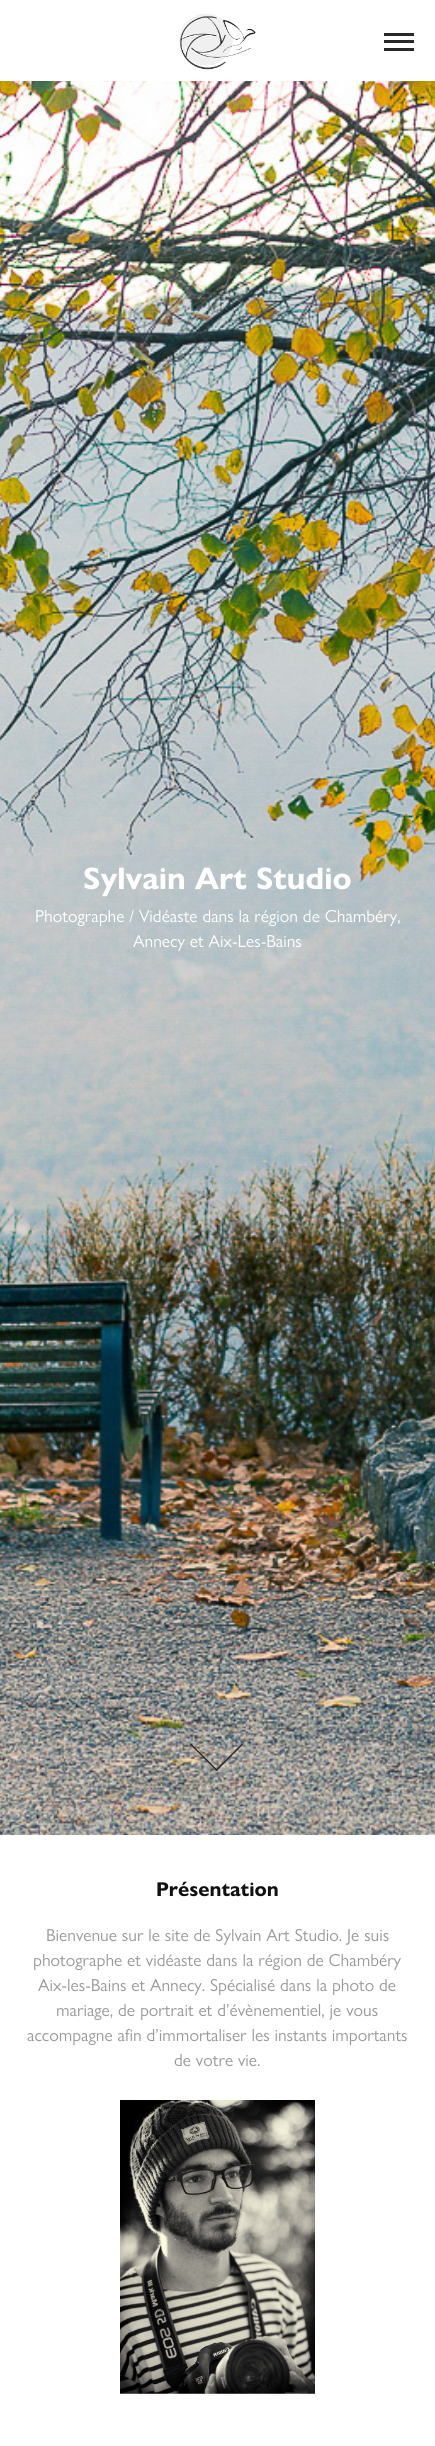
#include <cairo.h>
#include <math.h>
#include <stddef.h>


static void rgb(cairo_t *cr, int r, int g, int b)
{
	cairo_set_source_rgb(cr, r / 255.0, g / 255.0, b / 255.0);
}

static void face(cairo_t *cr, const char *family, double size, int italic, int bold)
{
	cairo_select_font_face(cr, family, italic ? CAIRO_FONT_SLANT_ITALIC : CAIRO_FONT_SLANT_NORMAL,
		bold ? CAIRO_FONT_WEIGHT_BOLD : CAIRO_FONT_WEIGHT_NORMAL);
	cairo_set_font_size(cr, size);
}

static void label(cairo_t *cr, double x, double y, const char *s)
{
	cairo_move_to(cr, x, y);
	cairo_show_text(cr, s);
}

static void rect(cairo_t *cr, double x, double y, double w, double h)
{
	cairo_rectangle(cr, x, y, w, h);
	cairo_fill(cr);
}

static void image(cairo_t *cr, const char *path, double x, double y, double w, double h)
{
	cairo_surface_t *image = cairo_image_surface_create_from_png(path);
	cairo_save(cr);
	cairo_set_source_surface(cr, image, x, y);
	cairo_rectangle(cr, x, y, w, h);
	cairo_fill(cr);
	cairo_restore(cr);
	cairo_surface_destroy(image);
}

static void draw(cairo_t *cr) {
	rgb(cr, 255, 255, 255);
	cairo_paint(cr);
	image(cr, "image0.png", 179, 14, 77, 56);
	rgb(cr, 40, 40, 40);
	rect(cr, 384, 33, 30, 3);
	rect(cr, 384, 40, 30, 3);
	rect(cr, 384, 48, 30, 3);
	image(cr, "image1.png", 0, 81, 435, 1754);
	face(cr, "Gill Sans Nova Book", 31.25, 0, 1);
	rgb(cr, 255, 255, 255);
	label(cr, 83, 889, "Sylvain Art Studio");
	face(cr, "Gill Sans Nova Book", 17.5, 0, 0);
	label(cr, 35, 922, "Photographe / Vidéaste dans la région de Chambéry,");
	label(cr, 133, 947, "Annecy et Aix-Les-Bains");
	rgb(cr, 40, 40, 40);
	cairo_new_path(cr);
	cairo_move_to(cr, 242, 1743.5);
	cairo_line_to(cr, 243, 1744.5);
	cairo_line_to(cr, 216.5, 1771);
	cairo_line_to(cr, 215.5, 1770);
	cairo_close_path(cr);
	cairo_fill(cr);
	cairo_new_path(cr);
	cairo_move_to(cr, 191, 1743.5);
	cairo_line_to(cr, 217.5, 1770);
	cairo_line_to(cr, 216.5, 1771);
	cairo_line_to(cr, 190, 1744.5);
	cairo_close_path(cr);
	cairo_fill(cr);
	face(cr, "Gill Sans Nova Book", 20, 0, 1);
	rgb(cr, 17, 17, 17);
	label(cr, 156, 1896, "Présentation");
	face(cr, "Gill Sans Nova Book", 17.5, 0, 0);
	rgb(cr, 153, 153, 153);
	label(cr, 46, 1941, "Bienvenue sur le site de Sylvain Art Studio. Je suis");
	label(cr, 33, 1966, "photographe et vidéaste dans la région de Chambéry");
	label(cr, 38, 1991, "Aix-les-Bains et Annecy. Spécialisé dans la photo de");
	label(cr, 56, 2016, "mariage, de portrait et d’évènementiel, je vous");
	label(cr, 27, 2041, "accompagne afin d’immortaliser les instants importants");
	label(cr, 174, 2066, "de votre vie.");
	image(cr, "image2.png", 120, 2100, 195, 294);
}

int main(void) {
	cairo_surface_t *surface = cairo_image_surface_create(CAIRO_FORMAT_RGB24, 435, 2446);
	cairo_t *cr = cairo_create(surface);
	cairo_font_options_t *options = cairo_font_options_create();
	cairo_font_options_set_hint_metrics(options, CAIRO_HINT_METRICS_OFF);
	cairo_font_options_set_hint_style(options, CAIRO_HINT_STYLE_NONE);
	cairo_set_font_options(cr, options);
	cairo_set_miter_limit(cr, 4);
	draw(cr);
	cairo_surface_write_to_png(surface, "render.png");
	cairo_font_options_destroy(options);
	cairo_destroy(cr);
	cairo_surface_destroy(surface);
	return 0;
}
